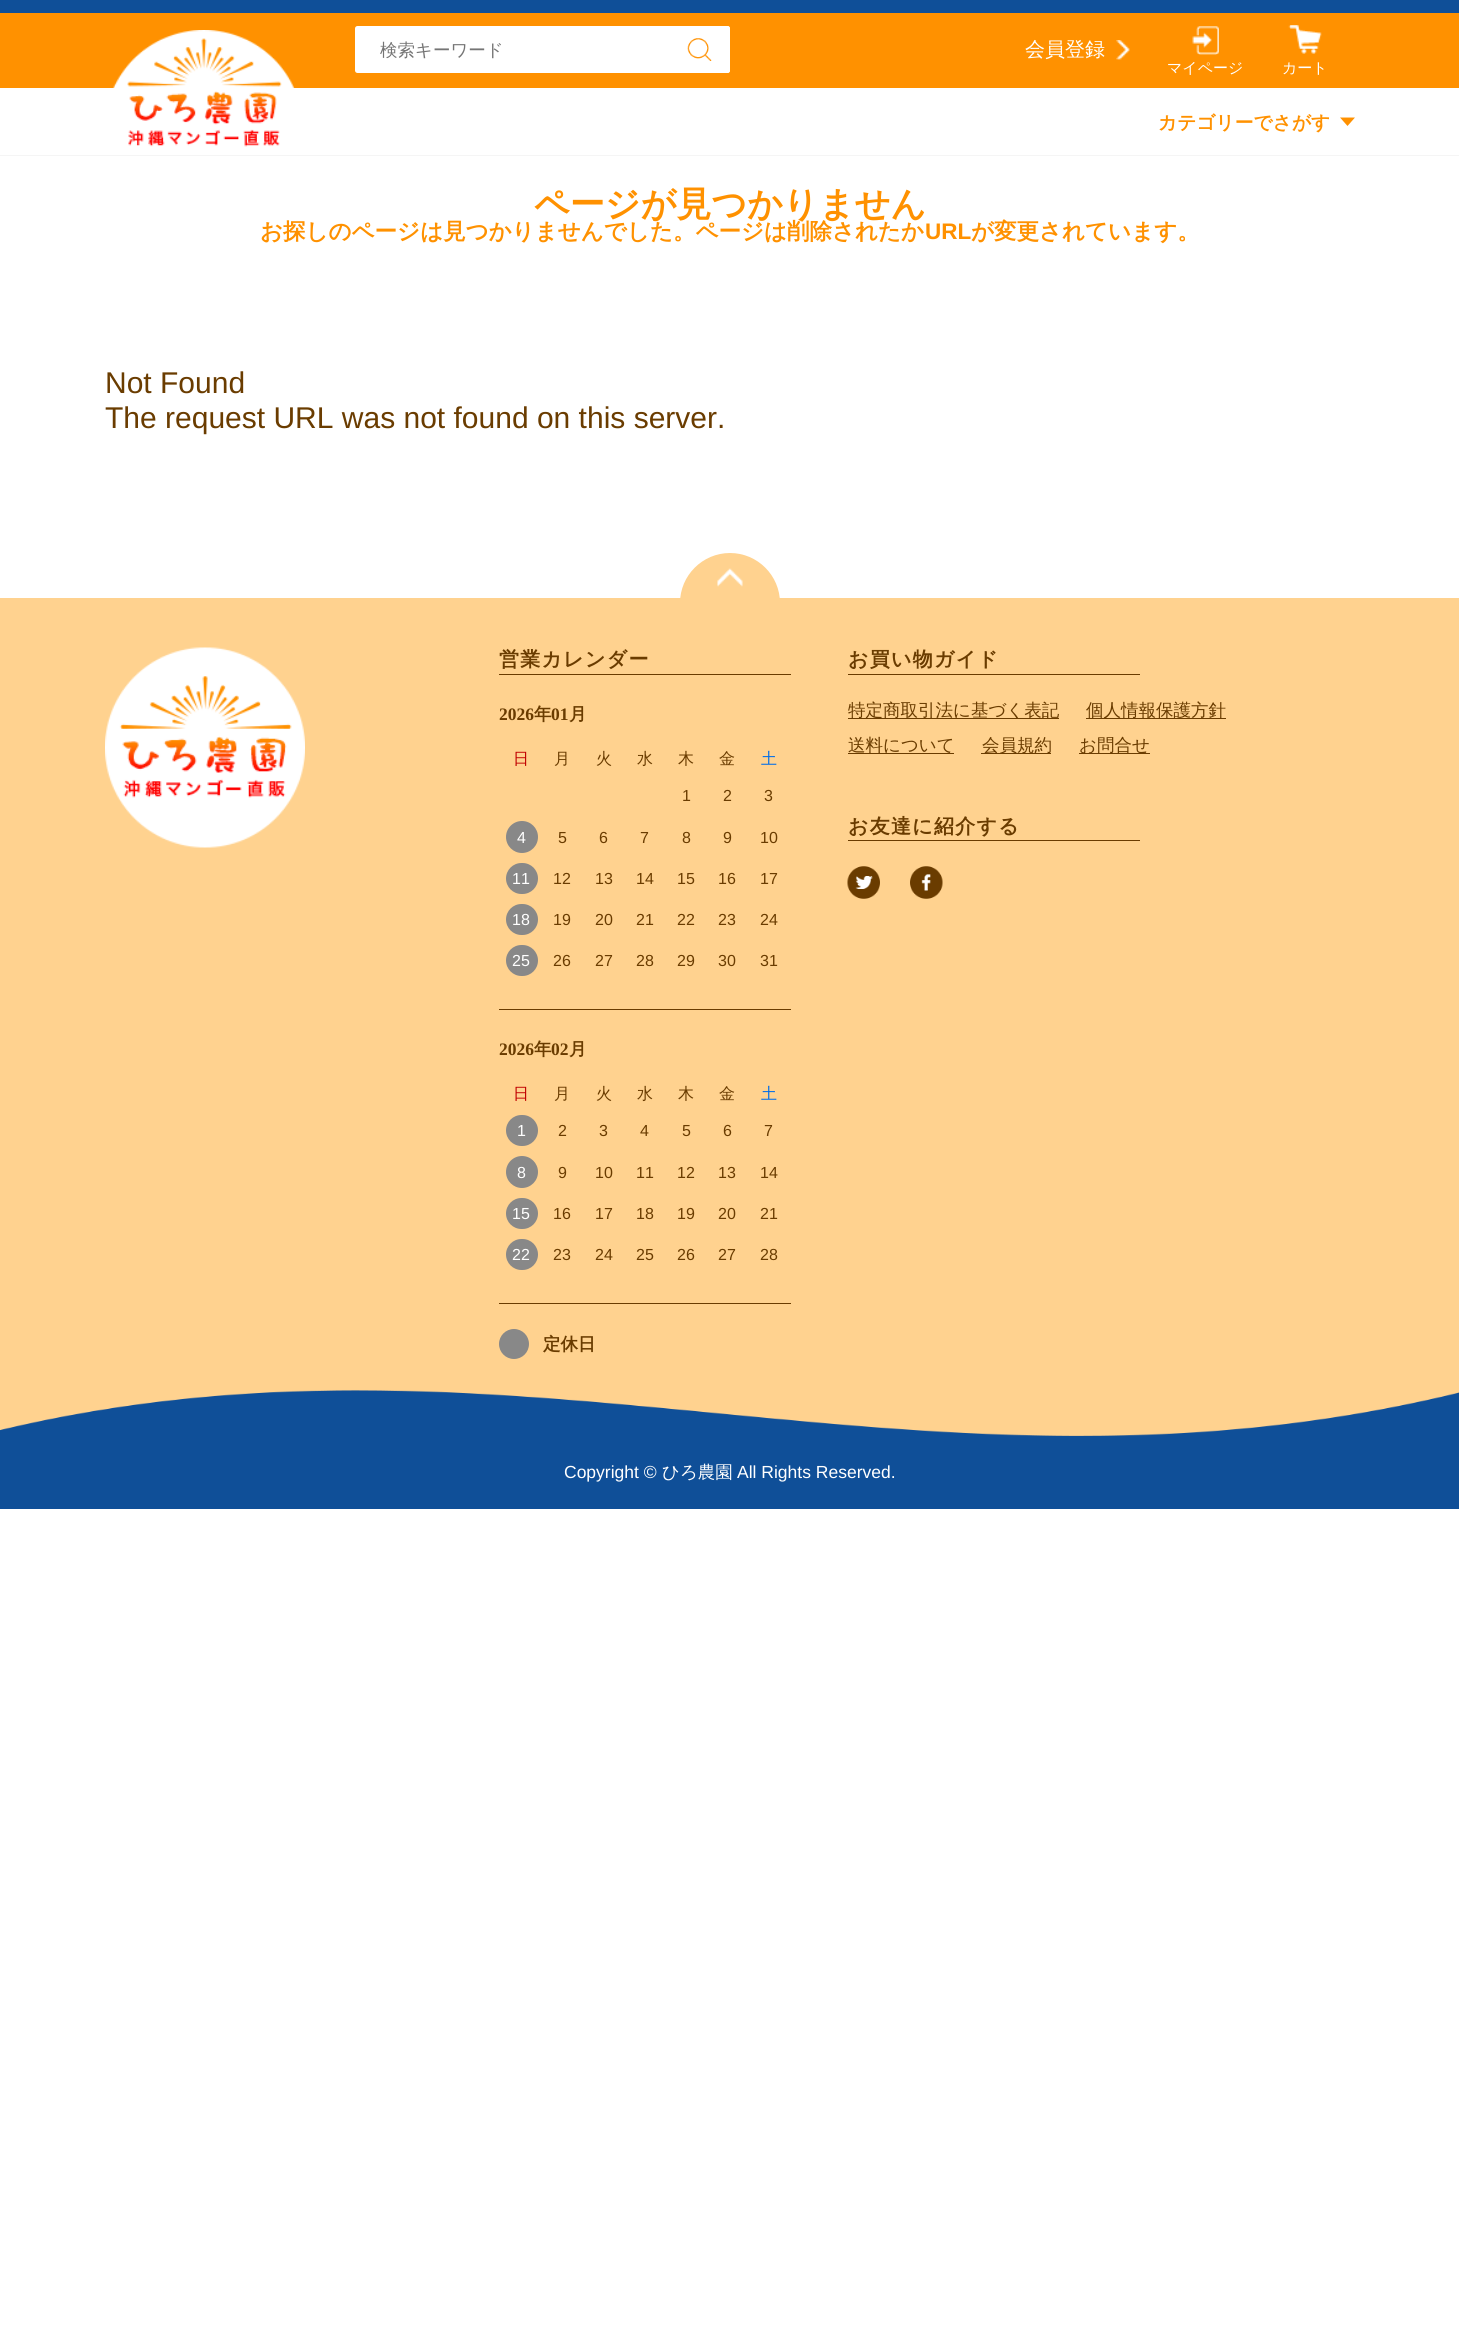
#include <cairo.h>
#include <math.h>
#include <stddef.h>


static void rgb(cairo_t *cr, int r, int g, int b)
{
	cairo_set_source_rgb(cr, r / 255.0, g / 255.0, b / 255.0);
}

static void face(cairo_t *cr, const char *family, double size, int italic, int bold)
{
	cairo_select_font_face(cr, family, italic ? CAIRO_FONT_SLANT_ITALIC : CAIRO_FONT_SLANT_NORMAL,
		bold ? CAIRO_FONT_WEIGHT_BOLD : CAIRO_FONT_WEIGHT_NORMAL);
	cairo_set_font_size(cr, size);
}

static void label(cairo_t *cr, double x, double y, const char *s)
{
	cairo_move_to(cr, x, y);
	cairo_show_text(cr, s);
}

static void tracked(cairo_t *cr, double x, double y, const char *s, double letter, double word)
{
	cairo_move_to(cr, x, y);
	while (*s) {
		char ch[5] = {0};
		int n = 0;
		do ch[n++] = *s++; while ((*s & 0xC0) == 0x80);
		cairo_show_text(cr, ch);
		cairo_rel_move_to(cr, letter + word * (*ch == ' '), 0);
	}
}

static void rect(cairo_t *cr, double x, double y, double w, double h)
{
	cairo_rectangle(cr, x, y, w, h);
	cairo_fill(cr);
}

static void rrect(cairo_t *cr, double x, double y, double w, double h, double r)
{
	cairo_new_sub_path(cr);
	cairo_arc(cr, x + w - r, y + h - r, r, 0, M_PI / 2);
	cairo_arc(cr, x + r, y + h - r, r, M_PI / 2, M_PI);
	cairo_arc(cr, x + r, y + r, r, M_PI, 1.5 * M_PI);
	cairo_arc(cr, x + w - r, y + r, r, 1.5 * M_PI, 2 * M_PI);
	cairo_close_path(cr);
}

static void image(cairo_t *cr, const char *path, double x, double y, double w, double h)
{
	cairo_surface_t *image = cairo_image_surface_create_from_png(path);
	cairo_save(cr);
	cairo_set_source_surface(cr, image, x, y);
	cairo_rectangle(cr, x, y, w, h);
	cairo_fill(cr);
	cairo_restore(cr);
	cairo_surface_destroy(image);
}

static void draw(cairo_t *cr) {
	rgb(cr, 255, 255, 255);
	cairo_paint(cr);
	rgb(cr, 245, 245, 245);
	rect(cr, 0, 155, 1459, 1);
	rgb(cr, 255, 145, 0);
	rect(cr, 0, 13, 1459, 75);
	rgb(cr, 15, 79, 152);
	rect(cr, 0, 0, 1459, 13);
	image(cr, "image0.png", 112, 30, 183, 117);
	rgb(cr, 255, 255, 255);
	rrect(cr, 355, 26, 375, 47, 2.5);
	cairo_fill(cr);
	face(cr, "WenQuanYi Zen Hei Medium", 17.5, 0, 0);
	rgb(cr, 117, 117, 117);
	label(cr, 380, 56, "検索キーワード");
	rgb(cr, 255, 255, 255);
	rrect(cr, 670, 26, 60, 47, 2.5);
	cairo_fill(cr);
	image(cr, "image1.png", 687, 38, 25, 23);
	face(cr, "WenQuanYi Zen Hei Medium", 20, 0, 0);
	label(cr, 1025, 56, "会員登録");
	image(cr, "image2.png", 1116, 40, 14, 20);
	image(cr, "image3.png", 1192, 26, 27, 29);
	face(cr, "WenQuanYi Zen Hei Medium", 15, 0, 0);
	label(cr, 1167, 73, "マイページ");
	image(cr, "image4.png", 1288, 25, 34, 29);
	label(cr, 1282, 73, "カート");
	face(cr, "WenQuanYi Zen Hei", 18.75, 0, 1);
	rgb(cr, 255, 145, 0);
	label(cr, 1158, 129, "カテゴリーでさがす");
	cairo_new_path(cr);
	cairo_move_to(cr, 1340, 117.5);
	cairo_line_to(cr, 1355, 117.5);
	cairo_line_to(cr, 1347.5, 126);
	cairo_close_path(cr);
	cairo_fill(cr);
	face(cr, "WenQuanYi Zen Hei", 35, 0, 1);
	label(cr, 534, 216, "ページが見つかりません");
	face(cr, "WenQuanYi Zen Hei", 22.5, 0, 1);
	label(cr, 260, 239, "お探しのページは見つかりませんでした。ページは削除されたか");
	face(cr, "Liberation Sans", 22.5, 0, 1);
	label(cr, 925, 239, "URL");
	face(cr, "WenQuanYi Zen Hei", 22.5, 0, 1);
	label(cr, 971, 239, "が変更されています。");
	face(cr, "Liberation Sans", 30, 0, 0);
	rgb(cr, 106, 60, 0);
	label(cr, 105, 393, "Not Found");
	label(cr, 105, 428, "The request URL was not found on this server.");
	rgb(cr, 255, 210, 143);
	rect(cr, 0, 598, 1459, 838);
	cairo_new_path(cr);
	cairo_move_to(cr, 730, 553);
	cairo_curve_to(cr, 757.5, 553, 780, 575.5, 780, 603);
	cairo_line_to(cr, 680, 603);
	cairo_curve_to(cr, 680, 575.5, 702.5, 553, 730, 553);
	cairo_close_path(cr);
	cairo_fill(cr);
	image(cr, "image5.png", 717, 568, 26, 19);
	image(cr, "image6.png", 105, 647, 200, 201);
	rgb(cr, 106, 60, 0);
	rect(cr, 499, 674, 292, 1);
	face(cr, "WenQuanYi Zen Hei", 20, 0, 1);
	tracked(cr, 499, 666, "営業カレンダー", 1.25, 0);
	face(cr, "Liberation Serif", 17.5, 0, 1);
	label(cr, 499, 720, "2026");
	face(cr, "WenQuanYi Zen Hei", 17.5, 0, 1);
	label(cr, 534, 720, "年");
	face(cr, "Liberation Serif", 17.5, 0, 1);
	label(cr, 551, 720, "01");
	face(cr, "WenQuanYi Zen Hei", 17.5, 0, 1);
	label(cr, 569, 720, "月");
	rect(cr, 499, 1009, 292, 1);
	face(cr, "WenQuanYi Zen Hei Medium", 16, 0, 0);
	rgb(cr, 192, 0, 0);
	label(cr, 513, 764, "日");
	rgb(cr, 106, 60, 0);
	label(cr, 554, 764, "月");
	label(cr, 596, 764, "火");
	label(cr, 637, 764, "水");
	label(cr, 678, 764, "木");
	label(cr, 719, 764, "金");
	rgb(cr, 0, 109, 232);
	label(cr, 761, 764, "土");
	face(cr, "Liberation Sans", 16, 0, 0);
	rgb(cr, 106, 60, 0);
	label(cr, 682, 801, "1");
	label(cr, 723, 801, "2");
	label(cr, 764, 801, "3");
	rgb(cr, 136, 136, 136);
	cairo_new_path(cr);
	cairo_arc(cr, 522, 837, 16, 0, 2 * M_PI);
	cairo_fill(cr);
	rgb(cr, 255, 255, 255);
	label(cr, 517, 843, "4");
	rgb(cr, 106, 60, 0);
	label(cr, 558, 843, "5");
	label(cr, 599, 843, "6");
	label(cr, 640, 843, "7");
	label(cr, 682, 843, "8");
	label(cr, 723, 843, "9");
	label(cr, 760, 843, "10");
	rgb(cr, 136, 136, 136);
	rrect(cr, 506, 863, 32, 31, 15.5);
	cairo_fill(cr);
	rgb(cr, 255, 255, 255);
	label(cr, 512, 884, "11");
	rgb(cr, 106, 60, 0);
	label(cr, 553, 884, "12");
	label(cr, 595, 884, "13");
	label(cr, 636, 884, "14");
	label(cr, 677, 884, "15");
	label(cr, 718, 884, "16");
	label(cr, 760, 884, "17");
	rgb(cr, 136, 136, 136);
	rrect(cr, 506, 904, 32, 31, 15.5);
	cairo_fill(cr);
	rgb(cr, 255, 255, 255);
	label(cr, 512, 925, "18");
	rgb(cr, 106, 60, 0);
	label(cr, 553, 925, "19");
	label(cr, 595, 925, "20");
	label(cr, 636, 925, "21");
	label(cr, 677, 925, "22");
	label(cr, 718, 925, "23");
	label(cr, 760, 925, "24");
	rgb(cr, 136, 136, 136);
	rrect(cr, 506, 945, 32, 31, 15.5);
	cairo_fill(cr);
	rgb(cr, 255, 255, 255);
	label(cr, 512, 966, "25");
	rgb(cr, 106, 60, 0);
	label(cr, 553, 966, "26");
	label(cr, 595, 966, "27");
	label(cr, 636, 966, "28");
	label(cr, 677, 966, "29");
	label(cr, 718, 966, "30");
	label(cr, 760, 966, "31");
	face(cr, "Liberation Serif", 17.5, 0, 1);
	label(cr, 499, 1055, "2026");
	face(cr, "WenQuanYi Zen Hei", 17.5, 0, 1);
	label(cr, 534, 1055, "年");
	face(cr, "Liberation Serif", 17.5, 0, 1);
	label(cr, 551, 1055, "02");
	face(cr, "WenQuanYi Zen Hei", 17.5, 0, 1);
	label(cr, 569, 1055, "月");
	rect(cr, 499, 1303, 292, 1);
	face(cr, "WenQuanYi Zen Hei Medium", 16, 0, 0);
	rgb(cr, 192, 0, 0);
	label(cr, 513, 1099, "日");
	rgb(cr, 106, 60, 0);
	label(cr, 554, 1099, "月");
	label(cr, 596, 1099, "火");
	label(cr, 637, 1099, "水");
	label(cr, 678, 1099, "木");
	label(cr, 719, 1099, "金");
	rgb(cr, 0, 109, 232);
	label(cr, 761, 1099, "土");
	rgb(cr, 136, 136, 136);
	rrect(cr, 506, 1115, 32, 31, 15.5);
	cairo_fill(cr);
	face(cr, "Liberation Sans", 16, 0, 0);
	rgb(cr, 255, 255, 255);
	label(cr, 517, 1136, "1");
	rgb(cr, 106, 60, 0);
	label(cr, 558, 1136, "2");
	label(cr, 599, 1136, "3");
	label(cr, 640, 1136, "4");
	label(cr, 682, 1136, "5");
	label(cr, 723, 1136, "6");
	label(cr, 764, 1136, "7");
	rgb(cr, 136, 136, 136);
	cairo_new_path(cr);
	cairo_arc(cr, 522, 1172, 16, 0, 2 * M_PI);
	cairo_fill(cr);
	rgb(cr, 255, 255, 255);
	label(cr, 517, 1178, "8");
	rgb(cr, 106, 60, 0);
	label(cr, 558, 1178, "9");
	label(cr, 595, 1178, "10");
	label(cr, 636, 1178, "11");
	label(cr, 677, 1178, "12");
	label(cr, 718, 1178, "13");
	label(cr, 760, 1178, "14");
	rgb(cr, 136, 136, 136);
	rrect(cr, 506, 1198, 32, 31, 15.5);
	cairo_fill(cr);
	rgb(cr, 255, 255, 255);
	label(cr, 512, 1219, "15");
	rgb(cr, 106, 60, 0);
	label(cr, 553, 1219, "16");
	label(cr, 595, 1219, "17");
	label(cr, 636, 1219, "18");
	label(cr, 677, 1219, "19");
	label(cr, 718, 1219, "20");
	label(cr, 760, 1219, "21");
	rgb(cr, 136, 136, 136);
	rrect(cr, 506, 1239, 32, 31, 15.5);
	cairo_fill(cr);
	rgb(cr, 255, 255, 255);
	label(cr, 512, 1260, "22");
	rgb(cr, 106, 60, 0);
	label(cr, 553, 1260, "23");
	label(cr, 595, 1260, "24");
	label(cr, 636, 1260, "25");
	label(cr, 677, 1260, "26");
	label(cr, 718, 1260, "27");
	label(cr, 760, 1260, "28");
	rgb(cr, 136, 136, 136);
	cairo_new_path(cr);
	cairo_arc(cr, 514, 1344, 15, 0, 2 * M_PI);
	cairo_fill(cr);
	face(cr, "WenQuanYi Zen Hei", 17.5, 0, 1);
	rgb(cr, 106, 60, 0);
	label(cr, 543, 1350, "定休日");
	rect(cr, 848, 674, 292, 1);
	face(cr, "WenQuanYi Zen Hei", 20, 0, 1);
	tracked(cr, 848, 666, "お買い物ガイド", 1.25, 0);
	rect(cr, 848, 718, 211, 1);
	face(cr, "WenQuanYi Zen Hei Medium", 17.5, 0, 0);
	label(cr, 848, 716, "特定商取引法に基づく表記");
	rect(cr, 1086, 718, 140, 1);
	label(cr, 1086, 716, "個人情報保護方針");
	rect(cr, 848, 753, 106, 1);
	label(cr, 848, 751, "送料について");
	rect(cr, 981, 753, 70, 1);
	label(cr, 982, 751, "会員規約");
	rect(cr, 1079, 753, 71, 1);
	label(cr, 1079, 751, "お問合せ");
	rect(cr, 848, 840, 292, 1);
	face(cr, "WenQuanYi Zen Hei", 20, 0, 1);
	tracked(cr, 848, 833, "お友達に紹介する", 1.25, 0);
	image(cr, "image7.png", 847, 866, 33, 33);
	image(cr, "image8.png", 910, 866, 33, 33);
	image(cr, "image9.png", 0, 1390, 1459, 46);
	rgb(cr, 15, 79, 152);
	rect(cr, 0, 1436, 1459, 73);
	face(cr, "Liberation Sans", 17.5, 0, 0);
	rgb(cr, 255, 255, 255);
	label(cr, 564, 1478, "Copyright ©");
	face(cr, "WenQuanYi Zen Hei Medium", 17.5, 0, 0);
	label(cr, 662, 1478, "ひろ農園");
	face(cr, "Liberation Sans", 17.5, 0, 0);
	label(cr, 737, 1478, "All Rights Reserved.");
}

int main(void) {
	cairo_surface_t *surface = cairo_image_surface_create(CAIRO_FORMAT_RGB24, 1459, 2327);
	cairo_t *cr = cairo_create(surface);
	cairo_font_options_t *options = cairo_font_options_create();
	cairo_font_options_set_hint_metrics(options, CAIRO_HINT_METRICS_OFF);
	cairo_font_options_set_hint_style(options, CAIRO_HINT_STYLE_NONE);
	cairo_set_font_options(cr, options);
	cairo_set_miter_limit(cr, 4);
	draw(cr);
	cairo_surface_write_to_png(surface, "render.png");
	cairo_font_options_destroy(options);
	cairo_destroy(cr);
	cairo_surface_destroy(surface);
	return 0;
}
